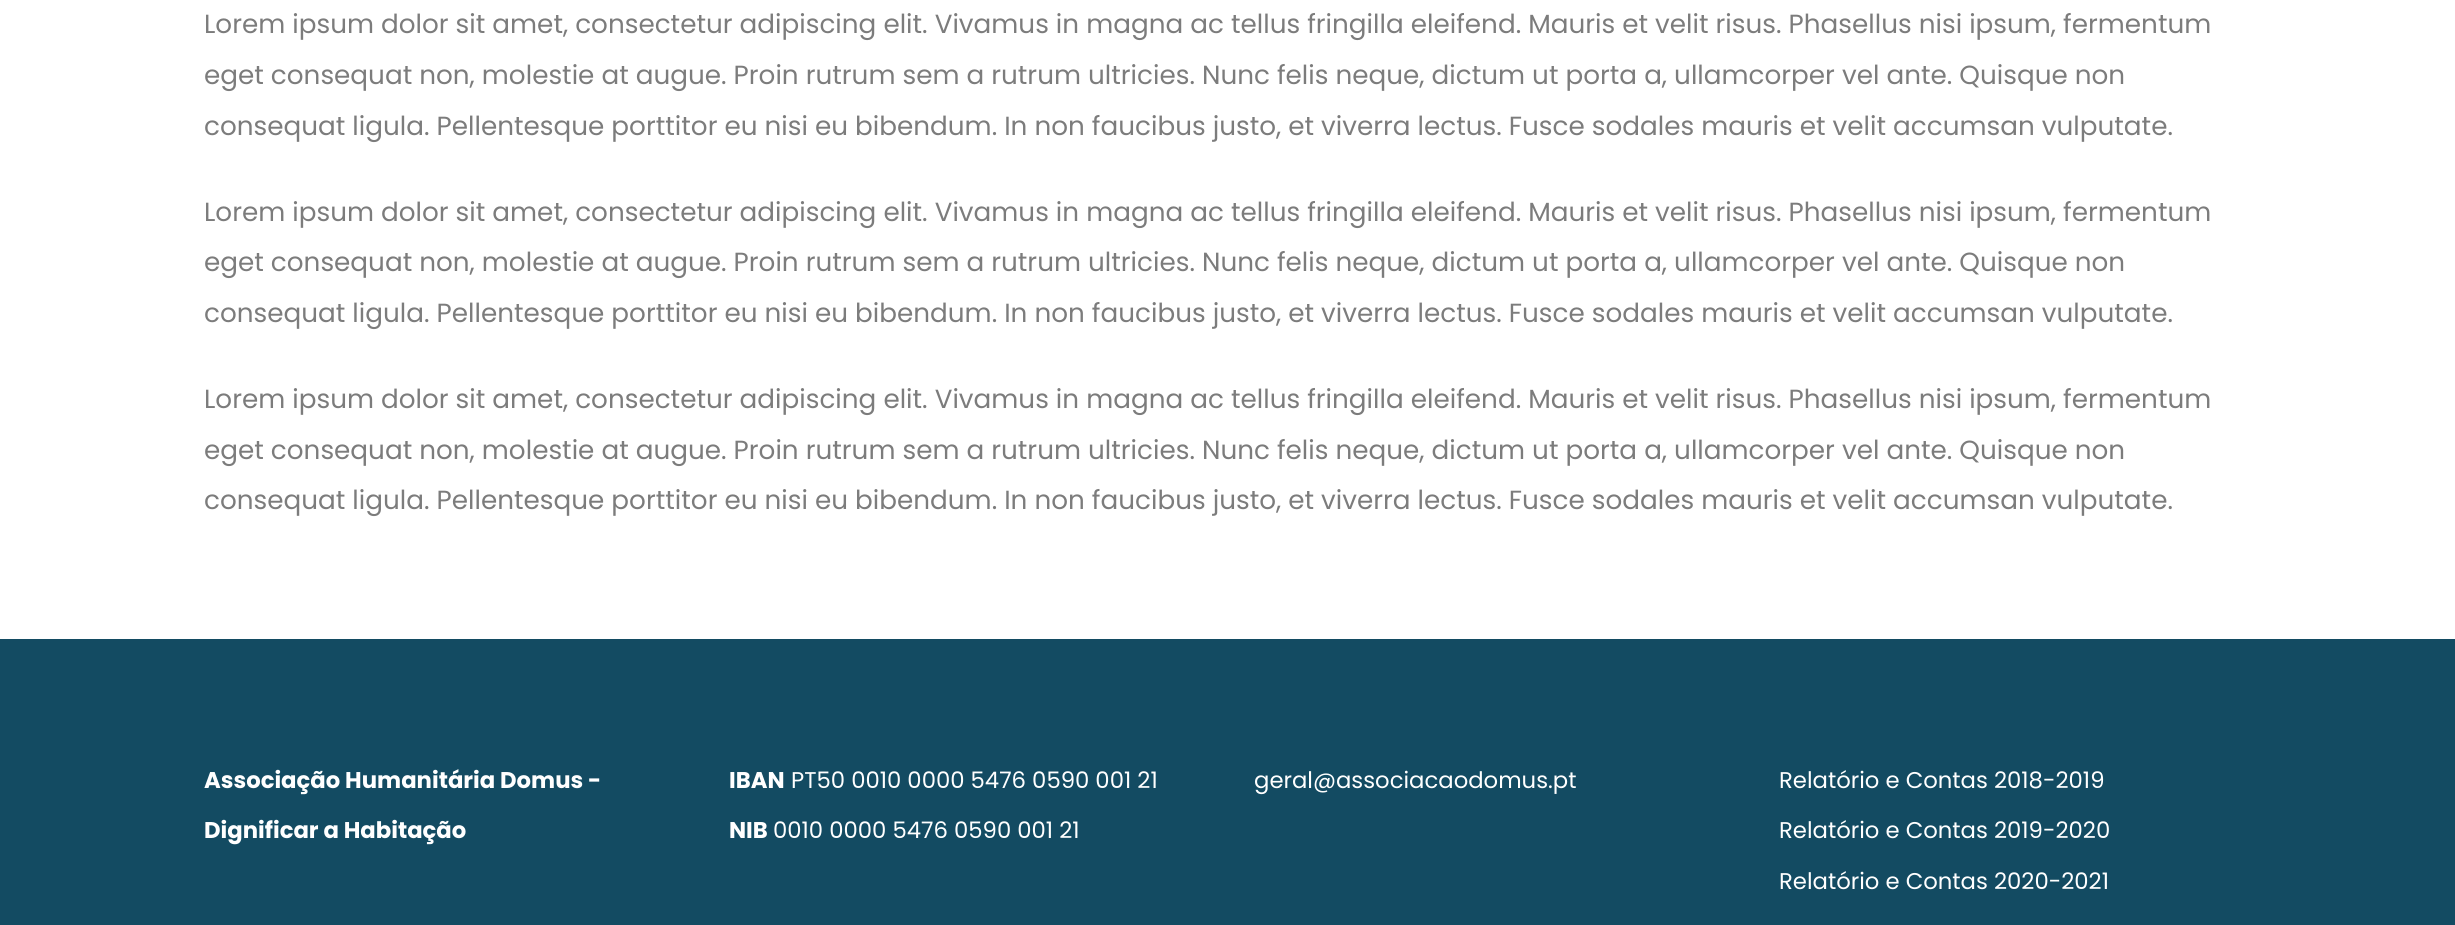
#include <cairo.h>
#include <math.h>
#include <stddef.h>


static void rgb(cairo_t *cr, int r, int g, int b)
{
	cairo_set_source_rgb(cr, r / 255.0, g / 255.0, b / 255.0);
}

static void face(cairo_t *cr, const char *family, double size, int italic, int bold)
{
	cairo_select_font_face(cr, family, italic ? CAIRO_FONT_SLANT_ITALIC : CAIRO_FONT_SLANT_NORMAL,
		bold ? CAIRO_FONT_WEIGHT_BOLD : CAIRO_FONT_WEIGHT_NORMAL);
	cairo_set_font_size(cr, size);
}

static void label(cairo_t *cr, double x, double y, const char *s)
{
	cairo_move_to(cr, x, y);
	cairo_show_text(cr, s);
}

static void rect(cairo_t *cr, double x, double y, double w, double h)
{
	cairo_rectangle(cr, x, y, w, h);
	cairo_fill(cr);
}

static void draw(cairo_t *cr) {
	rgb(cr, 255, 255, 255);
	cairo_paint(cr);
	face(cr, "Poppins", 26.25, 0, 0);
	rgb(cr, 124, 124, 124);
	label(cr, 204, 33, "Lorem ipsum dolor sit amet, consectetur adipiscing elit. Vivamus in magna ac tellus fringilla eleifend. Mauris et velit risus. Phasellus nisi ipsum, fermentum");
	label(cr, 204, 84, "eget consequat non, molestie at augue. Proin rutrum sem a rutrum ultricies. Nunc felis neque, dictum ut porta a, ullamcorper vel ante. Quisque non");
	label(cr, 204, 135, "consequat ligula. Pellentesque porttitor eu nisi eu bibendum. In non faucibus justo, et viverra lectus. Fusce sodales mauris et velit accumsan vulputate.");
	label(cr, 204, 221, "Lorem ipsum dolor sit amet, consectetur adipiscing elit. Vivamus in magna ac tellus fringilla eleifend. Mauris et velit risus. Phasellus nisi ipsum, fermentum");
	label(cr, 204, 271, "eget consequat non, molestie at augue. Proin rutrum sem a rutrum ultricies. Nunc felis neque, dictum ut porta a, ullamcorper vel ante. Quisque non");
	label(cr, 204, 322, "consequat ligula. Pellentesque porttitor eu nisi eu bibendum. In non faucibus justo, et viverra lectus. Fusce sodales mauris et velit accumsan vulputate.");
	label(cr, 204, 408, "Lorem ipsum dolor sit amet, consectetur adipiscing elit. Vivamus in magna ac tellus fringilla eleifend. Mauris et velit risus. Phasellus nisi ipsum, fermentum");
	label(cr, 204, 459, "eget consequat non, molestie at augue. Proin rutrum sem a rutrum ultricies. Nunc felis neque, dictum ut porta a, ullamcorper vel ante. Quisque non");
	label(cr, 204, 509, "consequat ligula. Pellentesque porttitor eu nisi eu bibendum. In non faucibus justo, et viverra lectus. Fusce sodales mauris et velit accumsan vulputate.");
	rgb(cr, 19, 75, 98);
	rect(cr, 0, 639, 2455, 286);
	face(cr, "Poppins", 22.75, 0, 1);
	rgb(cr, 255, 255, 255);
	label(cr, 204, 788, "Associação Humanitária Domus -");
	label(cr, 204, 838, "Dignificar a Habitação");
	label(cr, 729, 788, "IBAN");
	face(cr, "Poppins", 22.75, 0, 0);
	label(cr, 791, 788, "PT50 0010 0000 5476 0590 001 21");
	face(cr, "Poppins", 22.75, 0, 1);
	label(cr, 729, 838, "NIB");
	face(cr, "Poppins", 22.75, 0, 0);
	label(cr, 773, 838, "0010 0000 5476 0590 001 21");
	label(cr, 1254, 788, "geral@associacaodomus.pt");
	label(cr, 1779, 788, "Relatório e Contas 2018-2019");
	label(cr, 1779, 838, "Relatório e Contas 2019-2020");
	label(cr, 1779, 889, "Relatório e Contas 2020-2021");
}

int main(void) {
	cairo_surface_t *surface = cairo_image_surface_create(CAIRO_FORMAT_RGB24, 2455, 925);
	cairo_t *cr = cairo_create(surface);
	cairo_font_options_t *options = cairo_font_options_create();
	cairo_font_options_set_hint_metrics(options, CAIRO_HINT_METRICS_OFF);
	cairo_font_options_set_hint_style(options, CAIRO_HINT_STYLE_NONE);
	cairo_set_font_options(cr, options);
	cairo_set_miter_limit(cr, 4);
	draw(cr);
	cairo_surface_write_to_png(surface, "render.png");
	cairo_font_options_destroy(options);
	cairo_destroy(cr);
	cairo_surface_destroy(surface);
	return 0;
}
